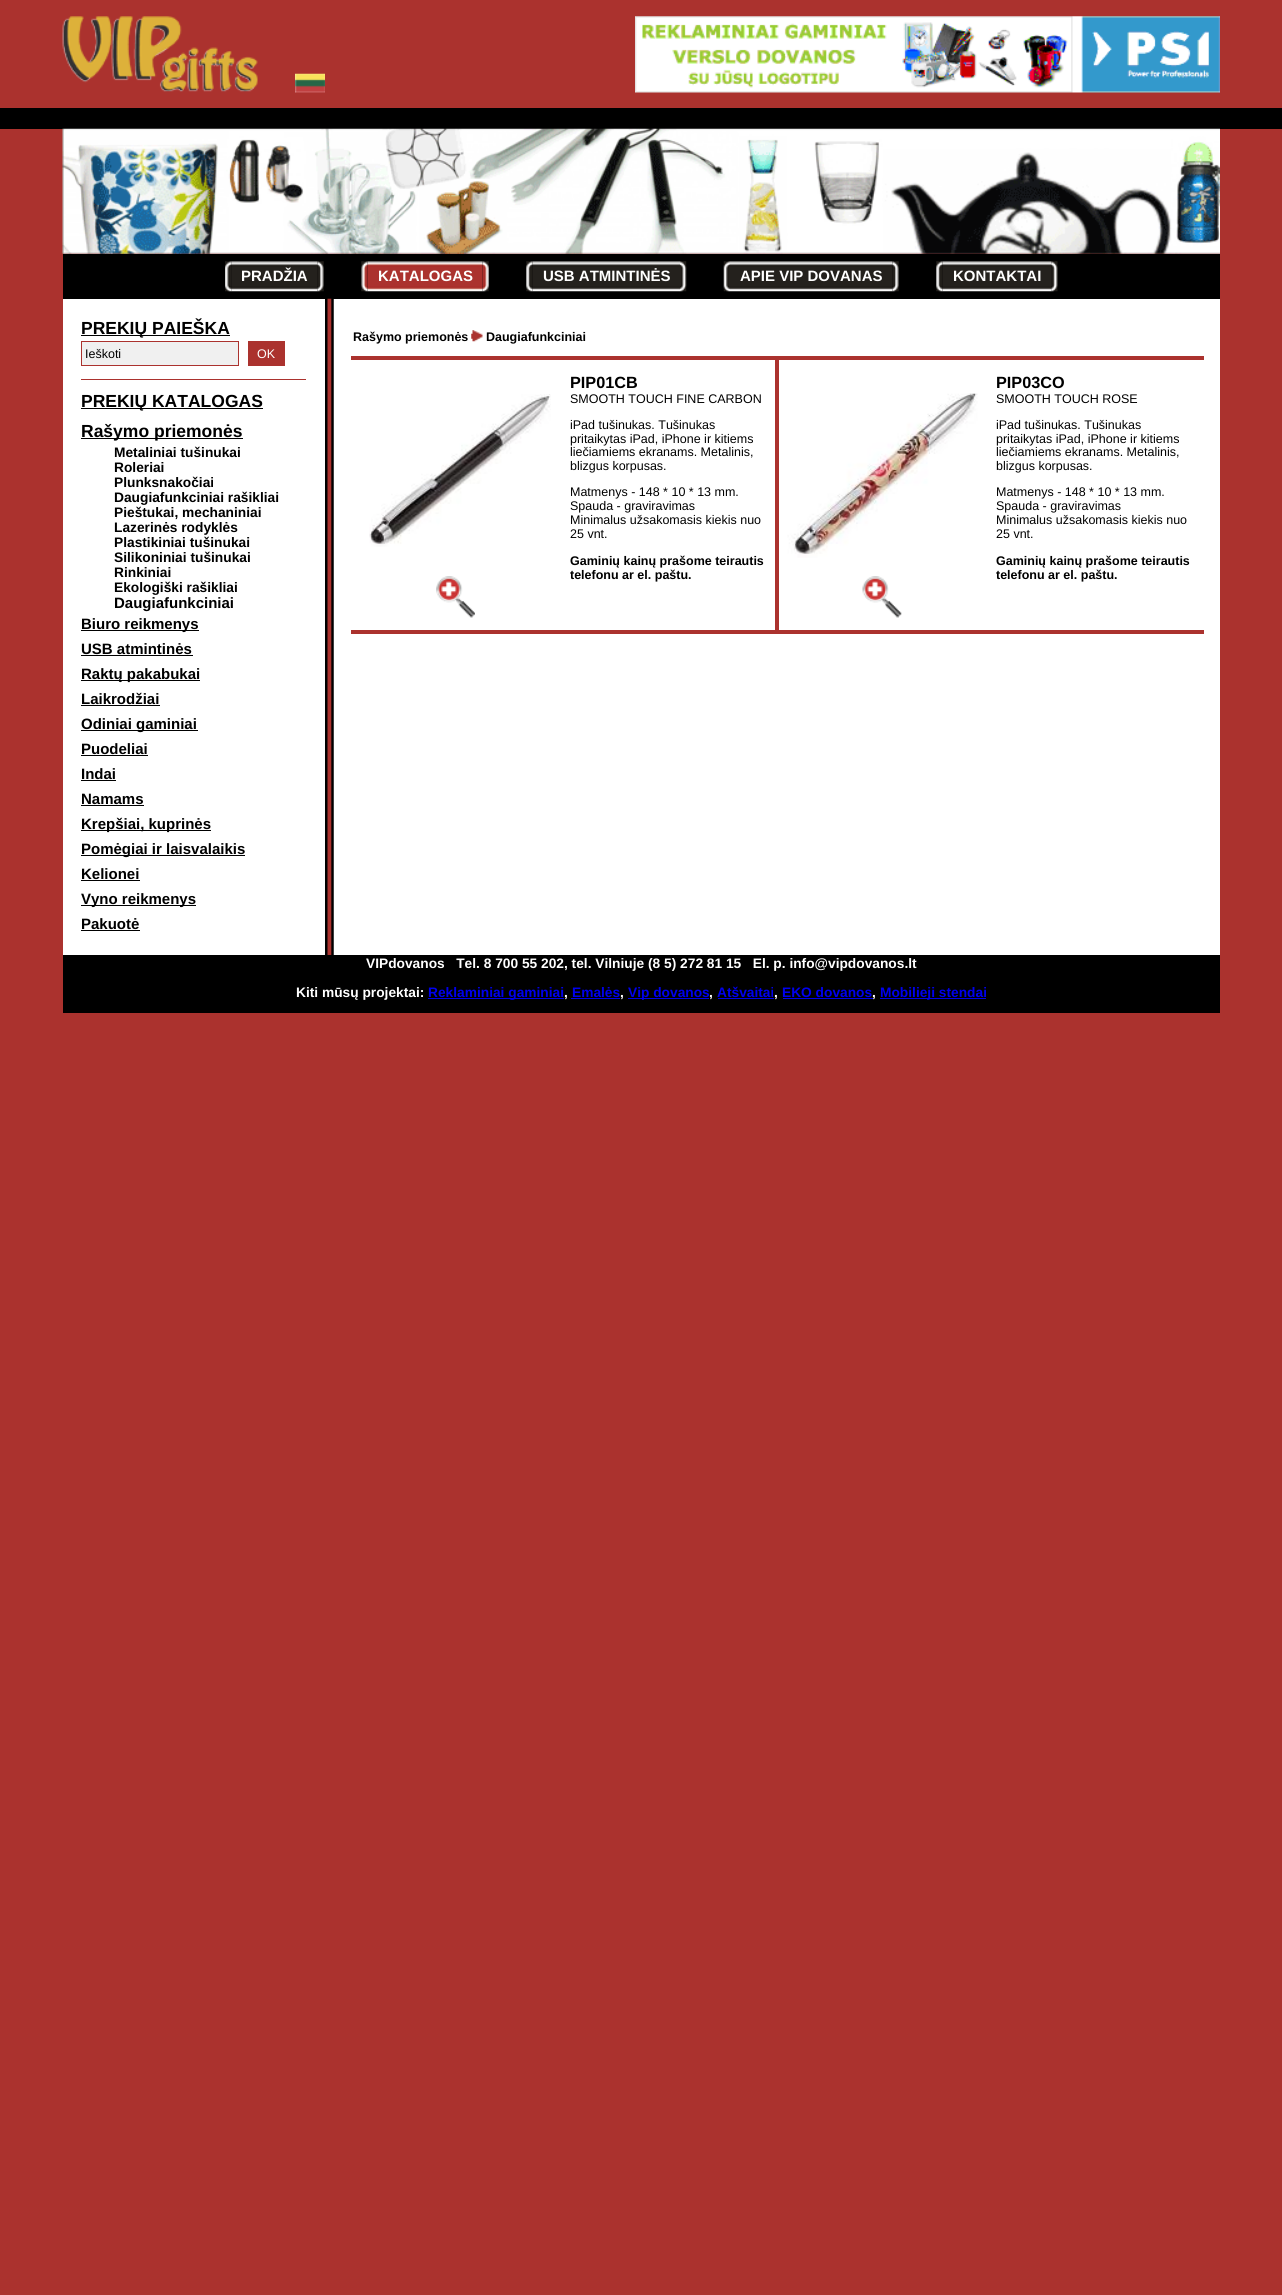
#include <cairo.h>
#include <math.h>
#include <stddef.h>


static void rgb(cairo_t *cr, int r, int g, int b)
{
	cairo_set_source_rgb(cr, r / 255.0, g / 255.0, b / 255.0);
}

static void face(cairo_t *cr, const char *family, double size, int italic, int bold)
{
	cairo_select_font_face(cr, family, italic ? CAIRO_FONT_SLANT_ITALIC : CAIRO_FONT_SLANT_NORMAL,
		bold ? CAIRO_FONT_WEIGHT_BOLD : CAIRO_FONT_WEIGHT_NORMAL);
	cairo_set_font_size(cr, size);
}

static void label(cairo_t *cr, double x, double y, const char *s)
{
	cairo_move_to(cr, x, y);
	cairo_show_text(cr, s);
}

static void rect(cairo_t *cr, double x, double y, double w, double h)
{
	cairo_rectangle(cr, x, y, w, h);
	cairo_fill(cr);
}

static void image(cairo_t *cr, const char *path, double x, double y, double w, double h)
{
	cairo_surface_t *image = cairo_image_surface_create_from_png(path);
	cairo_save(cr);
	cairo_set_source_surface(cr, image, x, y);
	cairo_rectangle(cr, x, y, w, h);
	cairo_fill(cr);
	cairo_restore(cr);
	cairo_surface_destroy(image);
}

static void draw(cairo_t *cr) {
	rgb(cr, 171, 50, 46);
	cairo_paint(cr);
	image(cr, "image0.png", 62, 16, 196, 76);
	image(cr, "image1.png", 295, 73, 30, 20);
	image(cr, "image2.png", 635, 16, 585, 77);
	rgb(cr, 0, 0, 0);
	rect(cr, 0, 108, 1282, 21);
	image(cr, "image3.png", 62, 128, 1158, 126);
	rect(cr, 63, 254, 1157, 45);
	image(cr, "image5.png", 231, 261, 87, 31);
	image(cr, "image4.png", 225, 261, 7, 31);
	face(cr, "Liberation Sans", 15, 0, 1);
	rgb(cr, 255, 255, 255);
	label(cr, 241, 281, "PRADŽIA");
	image(cr, "image6.png", 317, 261, 7, 31);
	image(cr, "image8.png", 367, 261, 116, 31);
	image(cr, "image7.png", 361, 261, 7, 31);
	label(cr, 378, 281, "KATALOGAS");
	image(cr, "image9.png", 482, 261, 7, 31);
	image(cr, "image11.png", 532, 261, 148, 31);
	image(cr, "image10.png", 526, 261, 7, 31);
	label(cr, 543, 281, "USB ATMINTINĖS");
	image(cr, "image12.png", 680, 261, 7, 31);
	image(cr, "image13.png", 723, 261, 7, 31);
	image(cr, "image14.png", 730, 261, 163, 31);
	label(cr, 740, 281, "APIE VIP DOVANAS");
	image(cr, "image6.png", 892, 261, 7, 31);
	image(cr, "image15.png", 942, 261, 110, 31);
	image(cr, "image10.png", 936, 261, 7, 31);
	label(cr, 953, 281, "KONTAKTAI");
	image(cr, "image16.png", 1051, 261, 7, 31);
	rect(cr, 63, 299, 1157, 656);
	rgb(cr, 0, 0, 0);
	rect(cr, 81, 335, 149, 1);
	face(cr, "Liberation Sans", 17.5, 0, 1);
	label(cr, 81, 334, "PREKIŲ PAIEŠKA");
	rgb(cr, 240, 240, 240);
	cairo_rectangle(cr, 81.5, 341.5, 157, 24);
	cairo_fill_preserve(cr);
	rgb(cr, 171, 50, 46);
	cairo_set_line_width(cr, 1);
	cairo_stroke(cr);
	face(cr, "Liberation Sans", 12.5, 0, 0);
	rgb(cr, 0, 0, 0);
	label(cr, 85, 358, "Ieškoti");
	rgb(cr, 171, 50, 46);
	rect(cr, 248, 341, 37, 25);
	rgb(cr, 255, 255, 255);
	label(cr, 257, 358, "OK");
	rgb(cr, 171, 50, 46);
	rect(cr, 81, 379, 225, 1);
	rgb(cr, 0, 0, 0);
	rect(cr, 81, 408, 182, 1);
	face(cr, "Liberation Sans", 17.5, 0, 1);
	label(cr, 81, 407, "PREKIŲ KATALOGAS");
	rect(cr, 81, 438, 162, 1);
	label(cr, 81, 437, "Rašymo priemonės");
	face(cr, "Liberation Sans", 13.75, 0, 1);
	label(cr, 114, 457, "Metaliniai tušinukai");
	label(cr, 114, 472, "Roleriai");
	label(cr, 114, 487, "Plunksnakočiai");
	label(cr, 114, 502, "Daugiafunkciniai rašikliai");
	label(cr, 114, 517, "Pieštukai, mechaniniai");
	label(cr, 114, 532, "Lazerinės rodyklės");
	label(cr, 114, 547, "Plastikiniai tušinukai");
	label(cr, 114, 562, "Silikoniniai tušinukai");
	label(cr, 114, 577, "Rinkiniai");
	label(cr, 114, 592, "Ekologiški rašikliai");
	face(cr, "Liberation Sans", 15, 0, 1);
	label(cr, 114, 608, "Daugiafunkciniai");
	rect(cr, 81, 630, 118, 1);
	label(cr, 81, 629, "Biuro reikmenys");
	label(cr, 81, 654, "USB atmintinės");
	rect(cr, 81, 655, 112, 1);
	rect(cr, 81, 680, 119, 1);
	label(cr, 81, 679, "Raktų pakabukai");
	label(cr, 81, 704, "Laikrodžiai");
	rect(cr, 81, 705, 79, 1);
	rect(cr, 81, 730, 117, 1);
	label(cr, 81, 729, "Odiniai gaminiai");
	label(cr, 81, 754, "Puodeliai");
	rect(cr, 81, 755, 67, 1);
	label(cr, 81, 779, "Indai");
	rect(cr, 81, 780, 35, 1);
	label(cr, 81, 804, "Namams");
	rect(cr, 81, 805, 63, 1);
	rect(cr, 81, 830, 130, 1);
	label(cr, 81, 829, "Krepšiai, kuprinės");
	rect(cr, 81, 855, 164, 1);
	label(cr, 81, 854, "Pomėgiai ir laisvalaikis");
	label(cr, 81, 879, "Kelionei");
	rect(cr, 81, 880, 59, 1);
	rect(cr, 81, 905, 115, 1);
	label(cr, 81, 904, "Vyno reikmenys");
	label(cr, 81, 929, "Pakuotė");
	rect(cr, 81, 930, 59, 1);
	image(cr, "image17.png", 325, 298, 9, 657);
	face(cr, "Liberation Sans", 12.5, 0, 1);
	label(cr, 353, 341, "Rašymo priemonės");
	image(cr, "image18.png", 471, 330, 12, 12);
	label(cr, 486, 341, "Daugiafunkciniai");
	rgb(cr, 171, 50, 46);
	rect(cr, 351, 356, 853, 4);
	rect(cr, 775, 630, 429, 4);
	rect(cr, 775, 356, 4, 278);
	rect(cr, 351, 630, 428, 4);
	image(cr, "image19.png", 369, 394, 182, 153);
	image(cr, "image20.png", 436, 576, 39, 42);
	face(cr, "Liberation Sans", 16.25, 0, 1);
	rgb(cr, 0, 0, 0);
	label(cr, 570, 388, "PIP01CB");
	face(cr, "Liberation Sans", 12.5, 0, 0);
	label(cr, 570, 403, "SMOOTH TOUCH FINE CARBON");
	label(cr, 570, 429, "iPad tušinukas. Tušinukas");
	label(cr, 570, 443, "pritaikytas iPad, iPhone ir kitiems");
	label(cr, 570, 456, "liečiamiems ekranams. Metalinis,");
	label(cr, 570, 470, "blizgus korpusas.");
	label(cr, 570, 496, "Matmenys - 148 * 10 * 13 mm.");
	label(cr, 570, 510, "Spauda - graviravimas");
	label(cr, 570, 524, "Minimalus užsakomasis kiekis nuo");
	label(cr, 570, 538, "25 vnt.");
	face(cr, "Liberation Sans", 12.5, 0, 1);
	label(cr, 570, 565, "Gaminių kainų prašome teirautis");
	label(cr, 570, 579, "telefonu ar el. paštu.");
	image(cr, "image21.png", 787, 393, 191, 165);
	image(cr, "image22.png", 862, 576, 40, 42);
	face(cr, "Liberation Sans", 16.25, 0, 1);
	label(cr, 996, 388, "PIP03CO");
	face(cr, "Liberation Sans", 12.5, 0, 0);
	label(cr, 996, 403, "SMOOTH TOUCH ROSE");
	label(cr, 996, 429, "iPad tušinukas. Tušinukas");
	label(cr, 996, 443, "pritaikytas iPad, iPhone ir kitiems");
	label(cr, 996, 456, "liečiamiems ekranams. Metalinis,");
	label(cr, 996, 470, "blizgus korpusas.");
	label(cr, 996, 496, "Matmenys - 148 * 10 * 13 mm.");
	label(cr, 996, 510, "Spauda - graviravimas");
	label(cr, 996, 524, "Minimalus užsakomasis kiekis nuo");
	label(cr, 996, 538, "25 vnt.");
	face(cr, "Liberation Sans", 12.5, 0, 1);
	label(cr, 996, 565, "Gaminių kainų prašome teirautis");
	label(cr, 996, 579, "telefonu ar el. paštu.");
	rect(cr, 63, 955, 1157, 58);
	face(cr, "Liberation Sans", 13.75, 0, 1);
	rgb(cr, 255, 255, 255);
	label(cr, 366, 968, "VIPdovanos   Tel. 8 700 55 202, tel. Vilniuje (8 5) 272 81 15   El. p. info@vipdovanos.lt");
	label(cr, 296, 997, "Kiti mūsų projektai:");
	rgb(cr, 0, 0, 238);
	rect(cr, 428, 998, 136, 1);
	label(cr, 428, 997, "Reklaminiai gaminiai");
	rgb(cr, 255, 255, 255);
	label(cr, 564, 997, ",");
	rgb(cr, 0, 0, 238);
	label(cr, 572, 997, "Emalės");
	rect(cr, 571, 998, 49, 1);
	rgb(cr, 255, 255, 255);
	label(cr, 620, 997, ",");
	rgb(cr, 0, 0, 238);
	rect(cr, 628, 998, 81, 1);
	label(cr, 628, 997, "Vip dovanos");
	rgb(cr, 255, 255, 255);
	label(cr, 709, 997, ",");
	rgb(cr, 0, 0, 238);
	label(cr, 717, 997, "Atšvaitai");
	rect(cr, 718, 998, 56, 1);
	rgb(cr, 255, 255, 255);
	label(cr, 774, 997, ",");
	rgb(cr, 0, 0, 238);
	label(cr, 782, 997, "EKO dovanos");
	rect(cr, 783, 998, 90, 1);
	rgb(cr, 255, 255, 255);
	label(cr, 872, 997, ",");
	rgb(cr, 0, 0, 238);
	rect(cr, 880, 998, 106, 1);
	label(cr, 880, 997, "Mobilieji stendai");
}

int main(void) {
	cairo_surface_t *surface = cairo_image_surface_create(CAIRO_FORMAT_RGB24, 1282, 2295);
	cairo_t *cr = cairo_create(surface);
	cairo_font_options_t *options = cairo_font_options_create();
	cairo_font_options_set_hint_metrics(options, CAIRO_HINT_METRICS_OFF);
	cairo_font_options_set_hint_style(options, CAIRO_HINT_STYLE_NONE);
	cairo_set_font_options(cr, options);
	cairo_set_miter_limit(cr, 4);
	draw(cr);
	cairo_surface_write_to_png(surface, "render.png");
	cairo_font_options_destroy(options);
	cairo_destroy(cr);
	cairo_surface_destroy(surface);
	return 0;
}
